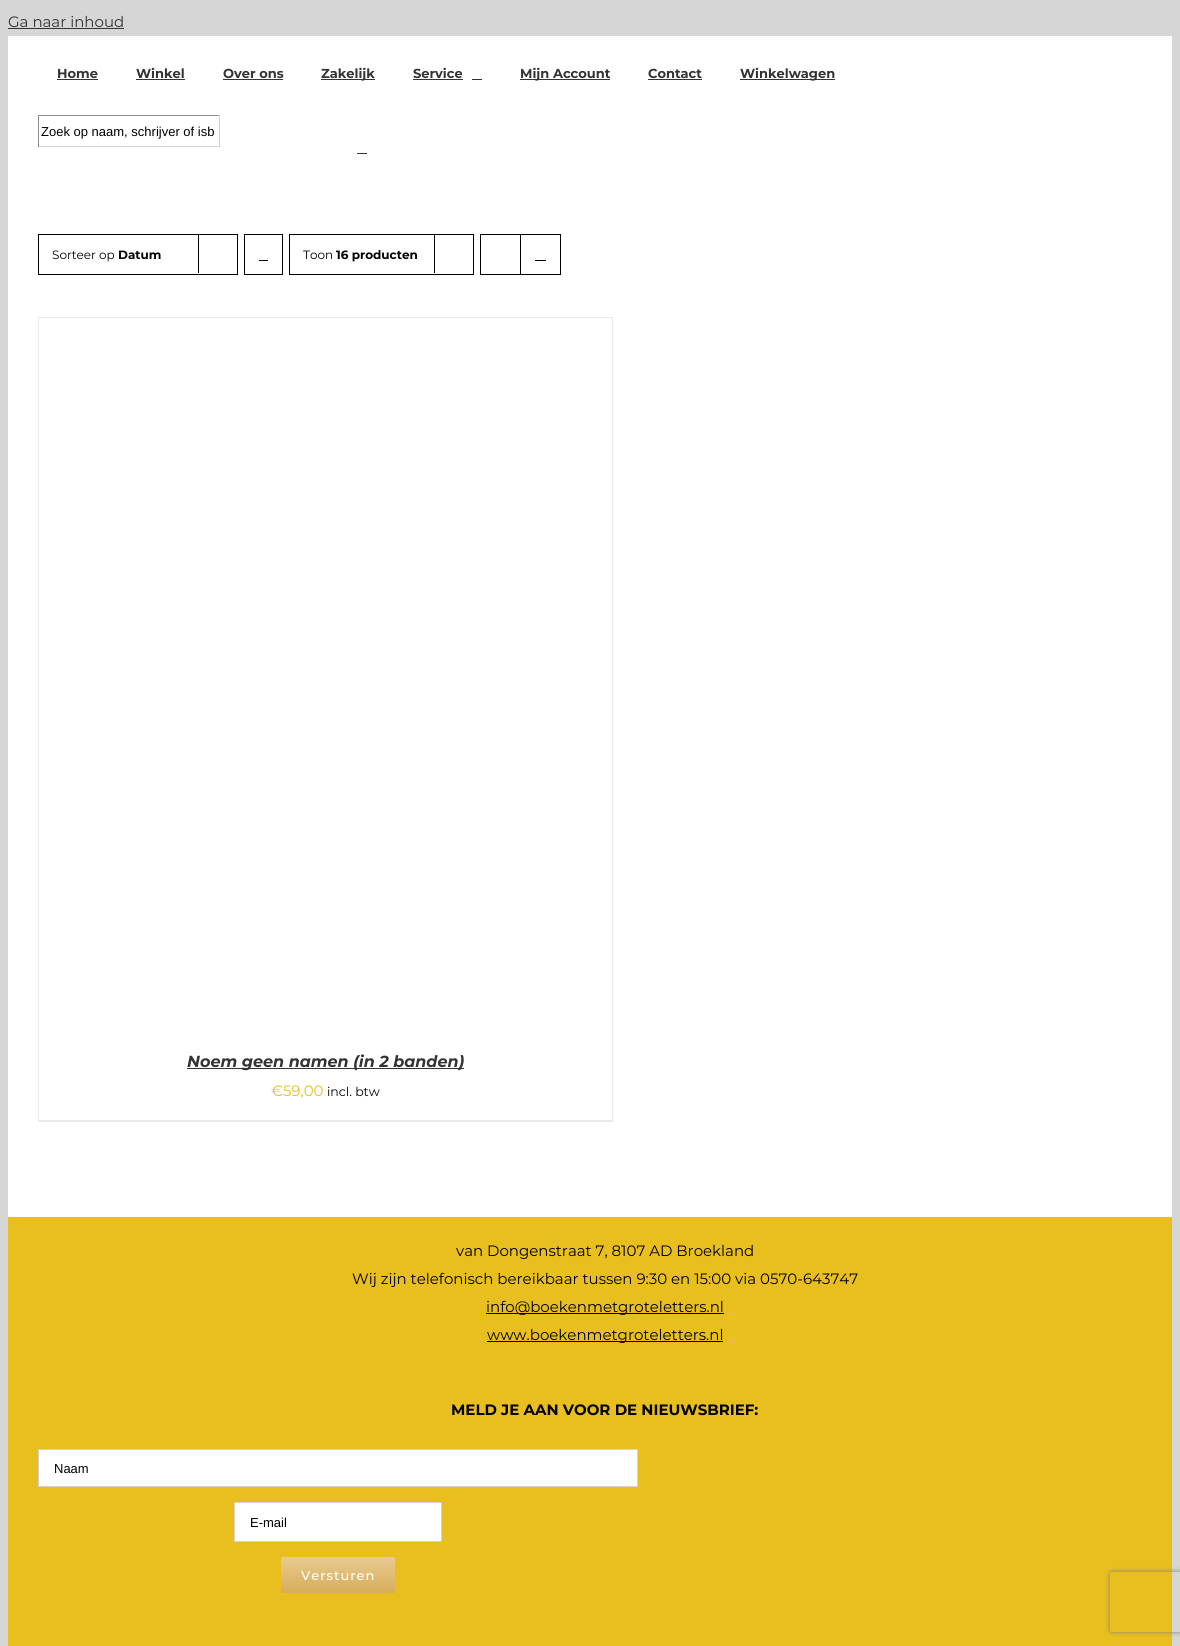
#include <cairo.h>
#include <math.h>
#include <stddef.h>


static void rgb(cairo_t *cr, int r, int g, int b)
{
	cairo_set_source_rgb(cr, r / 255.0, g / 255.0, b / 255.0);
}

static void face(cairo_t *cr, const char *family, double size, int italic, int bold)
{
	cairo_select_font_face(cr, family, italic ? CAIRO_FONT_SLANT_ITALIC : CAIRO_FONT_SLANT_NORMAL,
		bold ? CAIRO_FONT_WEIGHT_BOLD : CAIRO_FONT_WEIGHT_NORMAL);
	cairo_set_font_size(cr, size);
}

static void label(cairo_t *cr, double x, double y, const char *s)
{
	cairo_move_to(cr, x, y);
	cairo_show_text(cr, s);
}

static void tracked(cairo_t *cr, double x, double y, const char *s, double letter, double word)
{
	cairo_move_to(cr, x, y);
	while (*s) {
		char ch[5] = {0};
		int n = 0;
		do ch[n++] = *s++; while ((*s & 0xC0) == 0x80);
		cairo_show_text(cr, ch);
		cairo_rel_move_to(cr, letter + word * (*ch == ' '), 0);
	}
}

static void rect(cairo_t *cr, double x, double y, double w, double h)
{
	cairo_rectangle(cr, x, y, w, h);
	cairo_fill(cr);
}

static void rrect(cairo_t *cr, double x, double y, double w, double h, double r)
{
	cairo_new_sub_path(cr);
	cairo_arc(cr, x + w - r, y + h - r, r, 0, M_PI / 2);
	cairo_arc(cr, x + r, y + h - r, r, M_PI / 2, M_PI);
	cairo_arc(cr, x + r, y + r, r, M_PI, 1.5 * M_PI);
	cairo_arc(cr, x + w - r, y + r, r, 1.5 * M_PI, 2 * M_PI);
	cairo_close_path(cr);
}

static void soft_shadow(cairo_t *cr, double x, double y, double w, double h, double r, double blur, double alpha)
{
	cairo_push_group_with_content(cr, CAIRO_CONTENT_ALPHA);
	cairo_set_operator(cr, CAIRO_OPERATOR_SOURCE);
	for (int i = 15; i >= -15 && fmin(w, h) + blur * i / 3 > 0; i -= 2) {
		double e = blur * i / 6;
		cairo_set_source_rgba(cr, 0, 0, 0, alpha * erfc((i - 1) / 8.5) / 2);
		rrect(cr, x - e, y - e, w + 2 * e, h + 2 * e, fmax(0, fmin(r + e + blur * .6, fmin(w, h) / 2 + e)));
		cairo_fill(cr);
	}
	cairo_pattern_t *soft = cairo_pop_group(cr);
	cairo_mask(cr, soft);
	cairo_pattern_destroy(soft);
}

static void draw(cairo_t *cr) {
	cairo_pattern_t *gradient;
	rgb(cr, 215, 214, 214);
	cairo_paint(cr);
	face(cr, "Montserrat", 15, 0, 0);
	rgb(cr, 51, 51, 51);
	label(cr, 8, 27, "Ga naar inhoud");
	rect(cr, 8, 28, 116, 1);
	rgb(cr, 255, 255, 255);
	rect(cr, 8, 36, 1164, 1181);
	face(cr, "Montserrat", 13, 0, 1);
	rgb(cr, 51, 51, 51);
	label(cr, 57, 78, "Home");
	rect(cr, 57, 79, 41, 1);
	label(cr, 136, 78, "Winkel");
	rect(cr, 136, 79, 49, 1);
	label(cr, 223, 78, "Over ons");
	rect(cr, 223, 79, 60, 1);
	rect(cr, 321, 79, 54, 1);
	label(cr, 321, 78, "Zakelijk");
	label(cr, 413, 78, "Service");
	rect(cr, 413, 79, 50, 1);
	rect(cr, 472, 79, 10, 1);
	rect(cr, 520, 79, 90, 1);
	label(cr, 520, 78, "Mijn Account");
	label(cr, 648, 78, "Contact");
	rect(cr, 648, 79, 54, 1);
	rect(cr, 740, 79, 95, 1);
	label(cr, 740, 78, "Winkelwagen");
	rgb(cr, 140, 140, 140);
	rect(cr, 38, 115, 182, 1);
	rgb(cr, 210, 210, 210);
	rect(cr, 219, 115, 1, 32);
	rect(cr, 38, 146, 182, 1);
	rgb(cr, 140, 140, 140);
	rect(cr, 38, 115, 1, 32);
	face(cr, "Liberation Sans", 13, 0, 0);
	rgb(cr, 0, 0, 0);
	label(cr, 41, 136, "Zoek op naam, schrijver of isb");
	rgb(cr, 51, 51, 51);
	rect(cr, 357, 153, 10, 1);
	cairo_rectangle(cr, 38.5, 234.5, 199, 40);
	rgb(cr, 0, 0, 0);
	cairo_set_line_width(cr, 1);
	cairo_stroke(cr);
	face(cr, "Montserrat", 12, 0, 0);
	label(cr, 52, 259, "Sorteer op");
	face(cr, "Montserrat", 12, 0, 1);
	label(cr, 118, 259, "Datum");
	rect(cr, 198, 234, 1, 39);
	cairo_rectangle(cr, 244.5, 234.5, 38, 40);
	cairo_stroke(cr);
	rect(cr, 259, 260, 9, 1);
	cairo_rectangle(cr, 289.5, 234.5, 184, 40);
	cairo_stroke(cr);
	face(cr, "Montserrat", 12, 0, 0);
	label(cr, 303, 259, "Toon");
	face(cr, "Montserrat", 12, 0, 1);
	label(cr, 336, 259, "16 producten");
	rect(cr, 434, 234, 1, 39);
	cairo_rectangle(cr, 480.5, 234.5, 80, 40);
	cairo_stroke(cr);
	rect(cr, 520, 235, 1, 39);
	rect(cr, 535, 260, 11, 1);
	rgb(cr, 235, 234, 234);
	rect(cr, 38, 317, 575, 1);
	rect(cr, 612, 317, 1, 805);
	rect(cr, 38, 1120, 575, 2);
	rect(cr, 38, 317, 1, 805);
	rgb(cr, 51, 51, 51);
	rect(cr, 187, 1068, 277, 1);
	face(cr, "Montserrat", 16, 1, 1);
	label(cr, 187, 1067, "Noem geen namen (in 2 banden)");
	face(cr, "Montserrat", 15, 0, 0);
	rgb(cr, 232, 191, 30);
	label(cr, 271, 1096, "€59,00");
	face(cr, "Montserrat", 12.5, 0, 0);
	rgb(cr, 0, 0, 0);
	label(cr, 327, 1096, "incl. btw");
	rgb(cr, 232, 191, 30);
	rect(cr, 8, 1217, 1164, 429);
	face(cr, "Montserrat", 15, 0, 0);
	rgb(cr, 0, 0, 0);
	label(cr, 456, 1256, "van Dongenstraat 7, 8107 AD Broekland");
	label(cr, 352, 1284, "Wij zijn telefonisch bereikbaar tussen 9:30 en 15:00 via 0570-643747");
	rect(cr, 486, 1313, 238, 1);
	label(cr, 486, 1312, "info@boekenmetgroteletters.nl");
	rect(cr, 487, 1341, 236, 1);
	label(cr, 487, 1340, "www.boekenmetgroteletters.nl");
	face(cr, "Montserrat", 15, 0, 1);
	label(cr, 451, 1415, "MELD JE AAN VOOR DE NIEUWSBRIEF:");
	rgb(cr, 255, 255, 255);
	cairo_rectangle(cr, 38.5, 1449.5, 599, 37);
	cairo_fill_preserve(cr);
	rgb(cr, 210, 210, 210);
	cairo_stroke(cr);
	face(cr, "Liberation Sans", 13, 0, 0);
	rgb(cr, 0, 0, 0);
	label(cr, 54, 1473, "Naam");
	rgb(cr, 255, 255, 255);
	cairo_rectangle(cr, 234.5, 1502.5, 207, 39);
	cairo_fill_preserve(cr);
	rgb(cr, 210, 210, 210);
	cairo_stroke(cr);
	rgb(cr, 0, 0, 0);
	label(cr, 250, 1527, "E-mail");
	gradient = cairo_pattern_create_linear(338, 1557, 338, 1593);
	cairo_pattern_add_color_stop_rgba(gradient, 0, 0.91, 0.796, 0.565, 1);
	cairo_pattern_add_color_stop_rgba(gradient, 1, 0.839, 0.678, 0.353, 1);
	cairo_set_source(cr, gradient);
	cairo_pattern_destroy(gradient);
	rrect(cr, 281, 1557, 114, 36, 2);
	cairo_fill(cr);
	face(cr, "Montserrat Medium", 13, 0, 0);
	rgb(cr, 255, 255, 255);
	tracked(cr, 301, 1580, "Versturen", 1, 0);
	cairo_save(cr);
	cairo_set_fill_rule(cr, CAIRO_FILL_RULE_EVEN_ODD);
	cairo_new_path(cr);
	cairo_move_to(cr, 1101, 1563);
	cairo_line_to(cr, 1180, 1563);
	cairo_line_to(cr, 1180, 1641);
	cairo_line_to(cr, 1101, 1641);
	cairo_close_path(cr);
	cairo_move_to(cr, 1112, 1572);
	cairo_line_to(cr, 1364, 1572);
	cairo_curve_to(cr, 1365, 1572, 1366, 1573, 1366, 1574);
	cairo_line_to(cr, 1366, 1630);
	cairo_curve_to(cr, 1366, 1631, 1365, 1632, 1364, 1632);
	cairo_line_to(cr, 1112, 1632);
	cairo_curve_to(cr, 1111, 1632, 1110, 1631, 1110, 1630);
	cairo_line_to(cr, 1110, 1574);
	cairo_curve_to(cr, 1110, 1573, 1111, 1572, 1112, 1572);
	cairo_close_path(cr);
	cairo_clip(cr);
	rgb(cr, 128, 128, 128);
	soft_shadow(cr, 1110, 1572, 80, 60, 2, 2.5, 1);
	cairo_restore(cr);
}

int main(void) {
	cairo_surface_t *surface = cairo_image_surface_create(CAIRO_FORMAT_RGB24, 1180, 1646);
	cairo_t *cr = cairo_create(surface);
	cairo_font_options_t *options = cairo_font_options_create();
	cairo_font_options_set_hint_metrics(options, CAIRO_HINT_METRICS_OFF);
	cairo_font_options_set_hint_style(options, CAIRO_HINT_STYLE_NONE);
	cairo_set_font_options(cr, options);
	cairo_set_miter_limit(cr, 4);
	draw(cr);
	cairo_surface_write_to_png(surface, "render.png");
	cairo_font_options_destroy(options);
	cairo_destroy(cr);
	cairo_surface_destroy(surface);
	return 0;
}
